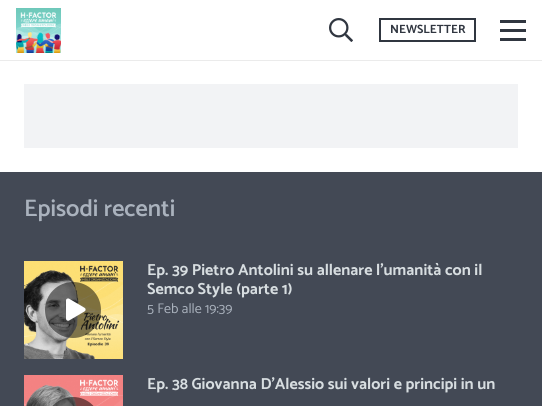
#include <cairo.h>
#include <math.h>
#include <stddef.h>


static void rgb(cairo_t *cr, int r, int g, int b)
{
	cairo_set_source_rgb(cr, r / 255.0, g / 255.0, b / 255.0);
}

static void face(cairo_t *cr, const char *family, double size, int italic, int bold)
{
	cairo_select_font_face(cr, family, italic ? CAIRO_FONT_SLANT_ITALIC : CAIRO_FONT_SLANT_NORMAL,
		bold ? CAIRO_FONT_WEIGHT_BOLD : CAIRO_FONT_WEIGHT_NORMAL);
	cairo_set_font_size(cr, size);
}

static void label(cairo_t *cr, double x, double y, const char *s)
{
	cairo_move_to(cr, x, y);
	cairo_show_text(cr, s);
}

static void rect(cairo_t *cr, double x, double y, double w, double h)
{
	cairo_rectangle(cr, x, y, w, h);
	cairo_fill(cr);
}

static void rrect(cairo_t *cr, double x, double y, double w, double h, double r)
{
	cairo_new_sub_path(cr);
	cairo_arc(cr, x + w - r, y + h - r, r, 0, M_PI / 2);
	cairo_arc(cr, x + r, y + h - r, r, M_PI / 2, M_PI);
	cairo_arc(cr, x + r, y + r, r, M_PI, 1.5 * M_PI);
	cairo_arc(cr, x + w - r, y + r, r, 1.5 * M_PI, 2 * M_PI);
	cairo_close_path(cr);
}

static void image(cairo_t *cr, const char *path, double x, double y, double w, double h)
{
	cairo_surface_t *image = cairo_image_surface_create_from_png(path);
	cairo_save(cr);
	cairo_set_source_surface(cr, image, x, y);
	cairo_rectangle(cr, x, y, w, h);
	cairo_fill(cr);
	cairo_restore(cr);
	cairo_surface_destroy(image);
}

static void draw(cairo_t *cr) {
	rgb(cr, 255, 255, 255);
	cairo_paint(cr);
	rgb(cr, 235, 235, 235);
	rect(cr, 0, 60, 542, 1);
	image(cr, "image0.png", 16, 8, 45, 45);
	image(cr, "image1.png", 329, 18, 24, 24);
	cairo_rectangle(cr, 380, 19, 95, 22);
	rgb(cr, 48, 54, 64);
	cairo_stroke(cr);
	face(cr, "Catamaran", 12, 0, 1);
	label(cr, 390, 33, "NEWSLETTER");
	rect(cr, 500, 29, 26, 3);
	rect(cr, 500, 20, 26, 3);
	rect(cr, 500, 38, 26, 3);
	rgb(cr, 242, 243, 245);
	rect(cr, 24, 84, 494, 64);
	rgb(cr, 67, 73, 85);
	rect(cr, 0, 172, 542, 234);
	face(cr, "Catamaran SemiBold", 24, 0, 0);
	rgb(cr, 170, 178, 189);
	label(cr, 24, 216, "Episodi recenti");
	image(cr, "image2.png", 24, 261, 99, 98);
	cairo_set_source_rgba(cr, 0, 0, 0, 0.5);
	cairo_arc(cr, 73, 310, 28, 0, 2 * M_PI);
	cairo_fill(cr);
	image(cr, "image3.png", 66, 298, 20, 23);
	face(cr, "Catamaran", 16, 0, 1);
	rgb(cr, 215, 221, 224);
	label(cr, 147, 275, "Ep. 39 Pietro Antolini su allenare l’umanità con il");
	label(cr, 147, 294, "Semco Style (parte 1)");
	face(cr, "Catamaran", 14, 0, 0);
	rgb(cr, 170, 178, 189);
	label(cr, 147, 313, "5 Feb alle 19:39");
	image(cr, "image4.png", 24, 375, 99, 31);
	cairo_set_source_rgba(cr, 0, 0, 0, 0.5);
	rrect(cr, 45, 397, 56, 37, 28);
	cairo_fill(cr);
	face(cr, "Catamaran", 16, 0, 1);
	rgb(cr, 215, 221, 224);
	label(cr, 147, 389, "Ep. 38 Giovanna D’Alessio sui valori e principi in un");
}

int main(void) {
	cairo_surface_t *surface = cairo_image_surface_create(CAIRO_FORMAT_RGB24, 542, 406);
	cairo_t *cr = cairo_create(surface);
	cairo_font_options_t *options = cairo_font_options_create();
	cairo_font_options_set_hint_metrics(options, CAIRO_HINT_METRICS_OFF);
	cairo_font_options_set_hint_style(options, CAIRO_HINT_STYLE_NONE);
	cairo_set_font_options(cr, options);
	cairo_set_miter_limit(cr, 4);
	draw(cr);
	cairo_surface_write_to_png(surface, "render.png");
	cairo_font_options_destroy(options);
	cairo_destroy(cr);
	cairo_surface_destroy(surface);
	return 0;
}
